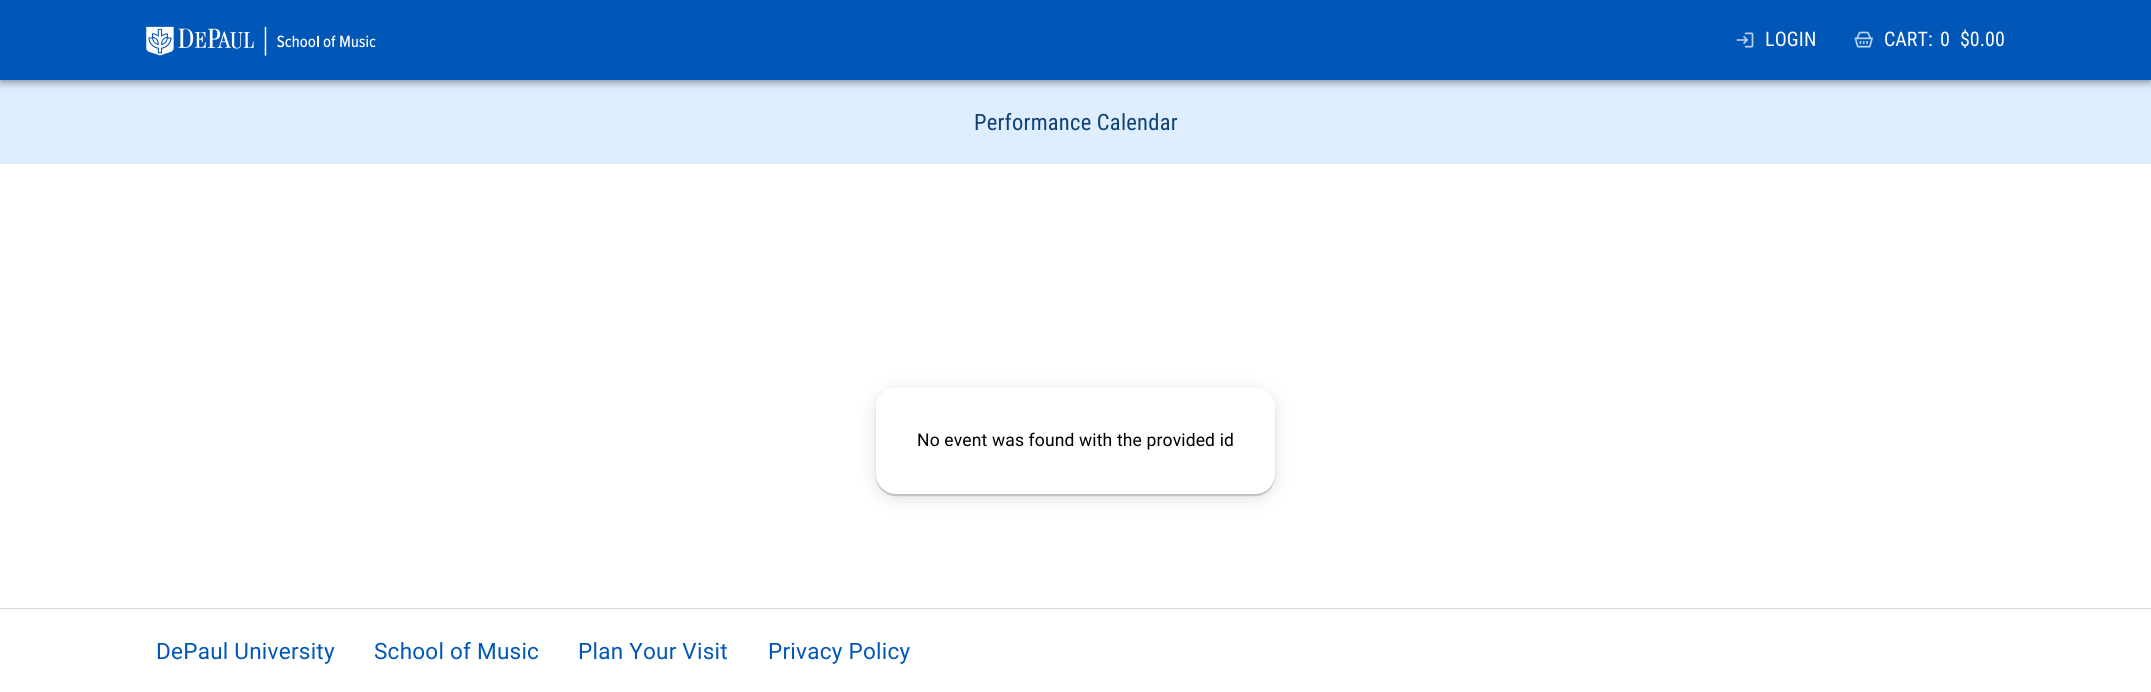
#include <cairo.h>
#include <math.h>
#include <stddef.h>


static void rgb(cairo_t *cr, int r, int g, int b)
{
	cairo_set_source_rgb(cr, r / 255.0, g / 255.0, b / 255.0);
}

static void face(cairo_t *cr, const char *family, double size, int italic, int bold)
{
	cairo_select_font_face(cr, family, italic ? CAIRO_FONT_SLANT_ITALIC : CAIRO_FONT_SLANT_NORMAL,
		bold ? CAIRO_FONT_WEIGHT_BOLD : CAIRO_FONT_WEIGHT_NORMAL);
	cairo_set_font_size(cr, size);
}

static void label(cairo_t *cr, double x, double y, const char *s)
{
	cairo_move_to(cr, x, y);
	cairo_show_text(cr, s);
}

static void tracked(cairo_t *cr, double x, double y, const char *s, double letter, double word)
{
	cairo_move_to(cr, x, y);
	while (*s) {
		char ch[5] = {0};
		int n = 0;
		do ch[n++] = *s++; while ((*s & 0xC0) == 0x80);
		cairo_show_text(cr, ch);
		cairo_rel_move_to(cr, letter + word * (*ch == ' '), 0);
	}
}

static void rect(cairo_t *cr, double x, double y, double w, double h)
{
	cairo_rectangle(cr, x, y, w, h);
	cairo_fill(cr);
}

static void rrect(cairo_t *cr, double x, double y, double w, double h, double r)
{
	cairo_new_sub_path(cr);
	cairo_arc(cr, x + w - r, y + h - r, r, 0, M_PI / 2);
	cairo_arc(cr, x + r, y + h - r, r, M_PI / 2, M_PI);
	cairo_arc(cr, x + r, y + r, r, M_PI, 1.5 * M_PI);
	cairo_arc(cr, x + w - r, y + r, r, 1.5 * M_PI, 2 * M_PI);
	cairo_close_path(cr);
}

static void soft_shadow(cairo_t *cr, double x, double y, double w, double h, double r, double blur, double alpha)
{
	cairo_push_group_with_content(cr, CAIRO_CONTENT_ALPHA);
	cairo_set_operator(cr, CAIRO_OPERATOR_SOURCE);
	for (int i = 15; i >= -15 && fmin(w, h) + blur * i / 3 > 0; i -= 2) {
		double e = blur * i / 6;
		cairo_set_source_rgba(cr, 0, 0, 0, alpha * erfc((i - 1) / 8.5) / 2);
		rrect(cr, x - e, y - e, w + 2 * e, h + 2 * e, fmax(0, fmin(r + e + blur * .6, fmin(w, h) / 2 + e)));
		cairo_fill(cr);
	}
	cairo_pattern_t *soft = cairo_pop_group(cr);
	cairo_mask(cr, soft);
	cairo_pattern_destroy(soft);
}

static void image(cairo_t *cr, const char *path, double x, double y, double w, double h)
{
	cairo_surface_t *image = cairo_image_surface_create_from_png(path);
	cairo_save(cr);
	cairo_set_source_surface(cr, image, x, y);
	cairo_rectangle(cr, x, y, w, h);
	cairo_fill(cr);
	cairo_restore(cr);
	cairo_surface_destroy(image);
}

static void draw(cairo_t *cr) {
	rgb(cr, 255, 255, 255);
	cairo_paint(cr);
	rgb(cr, 222, 238, 255);
	rect(cr, 0, 80, 2151, 84);
	rgb(cr, 0, 0, 0);
	soft_shadow(cr, 0, 1, 2151, 80, 0, 6, 0.12);
	soft_shadow(cr, 0, 5, 2151, 80, 0, 3, 0.14);
	soft_shadow(cr, 1, 4, 2149, 77, 0, 2.5, 0.2);
	rgb(cr, 0, 87, 183);
	rect(cr, 0, 0, 2151, 80);
	image(cr, "image0.png", 146, 26, 230, 30);
	image(cr, "image1.png", 1736, 32, 18, 16);
	face(cr, "Roboto Condensed", 20, 0, 0);
	rgb(cr, 255, 255, 255);
	tracked(cr, 1765, 46, "LOGIN", 0.15, 0);
	image(cr, "image2.png", 1854, 31, 19, 17);
	label(cr, 1884, 46, "CART:");
	label(cr, 1940, 46, "0");
	label(cr, 1960, 46, "$0.00");
	face(cr, "Roboto Condensed", 22.5, 0, 0);
	rgb(cr, 14, 65, 116);
	tracked(cr, 974, 130, "Performance Calendar", 0.25, 0);
	cairo_save(cr);
	cairo_set_fill_rule(cr, CAIRO_FILL_RULE_EVEN_ODD);
	cairo_new_path(cr);
	cairo_move_to(cr, 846, 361);
	cairo_line_to(cr, 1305, 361);
	cairo_line_to(cr, 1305, 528);
	cairo_line_to(cr, 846, 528);
	cairo_close_path(cr);
	cairo_move_to(cr, 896, 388);
	cairo_line_to(cr, 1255, 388);
	cairo_curve_to(cr, 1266, 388, 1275, 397, 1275, 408);
	cairo_line_to(cr, 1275, 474);
	cairo_curve_to(cr, 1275, 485, 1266, 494, 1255, 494);
	cairo_line_to(cr, 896, 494);
	cairo_curve_to(cr, 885, 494, 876, 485, 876, 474);
	cairo_line_to(cr, 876, 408);
	cairo_curve_to(cr, 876, 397, 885, 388, 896, 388);
	cairo_close_path(cr);
	cairo_clip(cr);
	rgb(cr, 0, 0, 0);
	soft_shadow(cr, 876, 391, 399, 107, 20, 9.5, 0.12);
	cairo_restore(cr);
	cairo_save(cr);
	cairo_set_fill_rule(cr, CAIRO_FILL_RULE_EVEN_ODD);
	cairo_new_path(cr);
	cairo_move_to(cr, 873, 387);
	cairo_line_to(cr, 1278, 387);
	cairo_line_to(cr, 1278, 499);
	cairo_line_to(cr, 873, 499);
	cairo_close_path(cr);
	cairo_move_to(cr, 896, 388);
	cairo_line_to(cr, 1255, 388);
	cairo_curve_to(cr, 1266, 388, 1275, 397, 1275, 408);
	cairo_line_to(cr, 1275, 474);
	cairo_curve_to(cr, 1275, 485, 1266, 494, 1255, 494);
	cairo_line_to(cr, 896, 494);
	cairo_curve_to(cr, 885, 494, 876, 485, 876, 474);
	cairo_line_to(cr, 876, 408);
	cairo_curve_to(cr, 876, 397, 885, 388, 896, 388);
	cairo_close_path(cr);
	cairo_clip(cr);
	rgb(cr, 0, 0, 0);
	soft_shadow(cr, 876, 390, 399, 106, 20, 0.5, 0.2);
	cairo_restore(cr);
	face(cr, "Roboto", 17.5, 0, 0);
	rgb(cr, 0, 0, 0);
	tracked(cr, 917, 446, "No event was found with the provided id", 0.15, 0);
	rgb(cr, 218, 218, 218);
	rect(cr, 0, 608, 2151, 1);
	face(cr, "Roboto", 22.5, 0, 0);
	rgb(cr, 0, 87, 183);
	tracked(cr, 156, 659, "DePaul University", 0.25, 0);
	tracked(cr, 374, 659, "School of Music", 0.25, 0);
	tracked(cr, 578, 659, "Plan Your Visit", 0.25, 0);
	tracked(cr, 768, 659, "Privacy Policy", 0.25, 0);
}

int main(void) {
	cairo_surface_t *surface = cairo_image_surface_create(CAIRO_FORMAT_RGB24, 2151, 692);
	cairo_t *cr = cairo_create(surface);
	cairo_font_options_t *options = cairo_font_options_create();
	cairo_font_options_set_hint_metrics(options, CAIRO_HINT_METRICS_OFF);
	cairo_font_options_set_hint_style(options, CAIRO_HINT_STYLE_NONE);
	cairo_set_font_options(cr, options);
	cairo_set_miter_limit(cr, 4);
	draw(cr);
	cairo_surface_write_to_png(surface, "render.png");
	cairo_font_options_destroy(options);
	cairo_destroy(cr);
	cairo_surface_destroy(surface);
	return 0;
}
